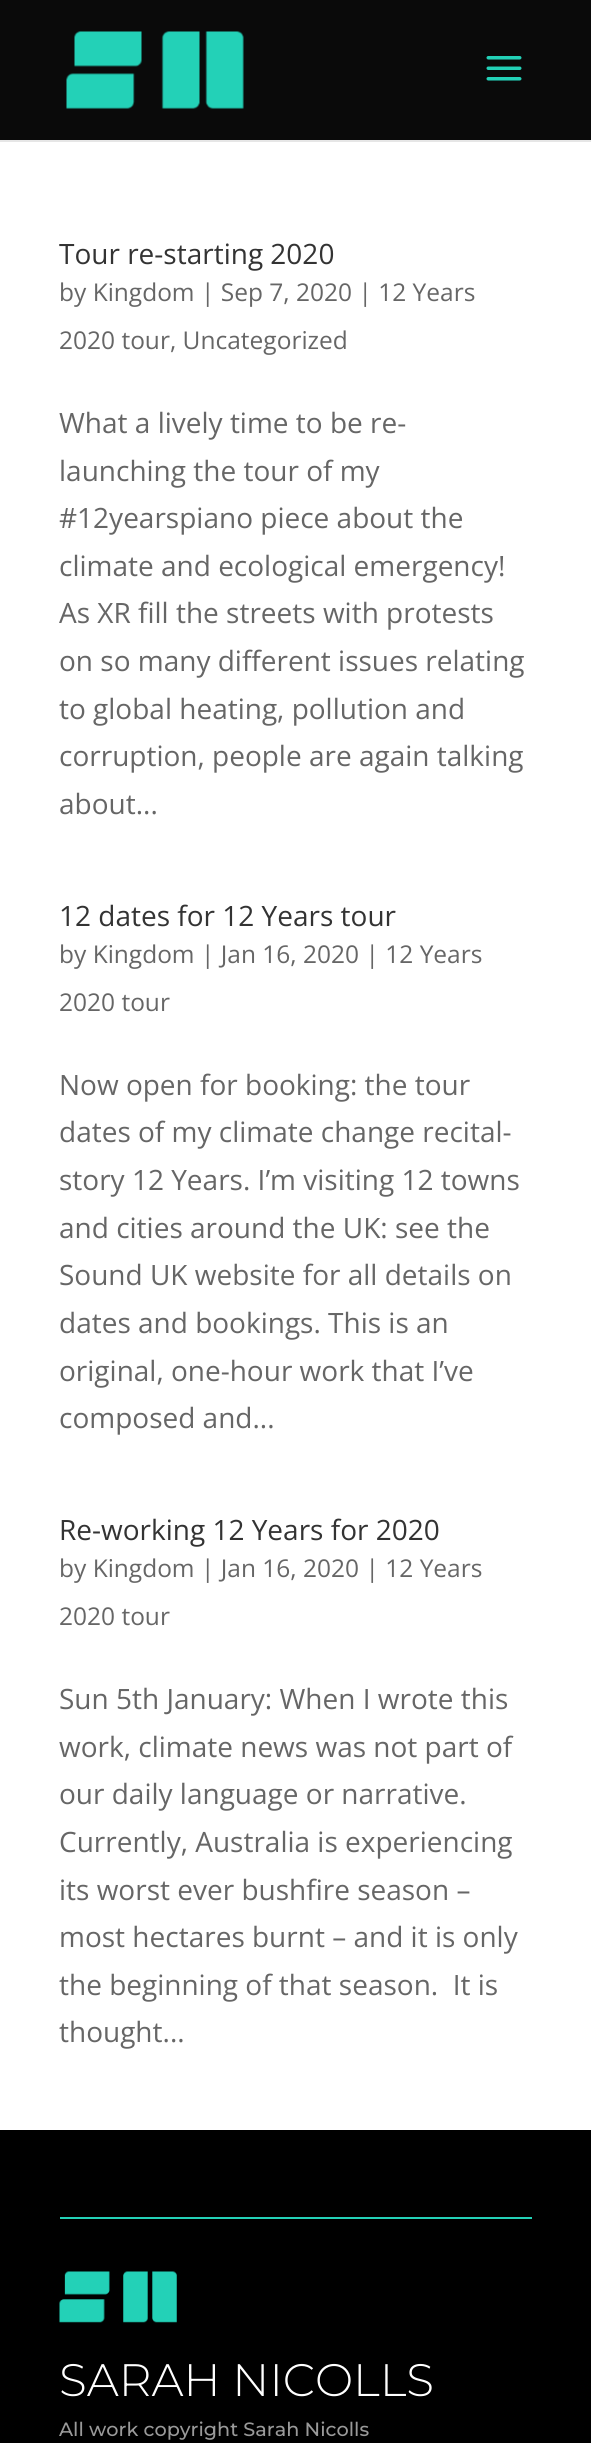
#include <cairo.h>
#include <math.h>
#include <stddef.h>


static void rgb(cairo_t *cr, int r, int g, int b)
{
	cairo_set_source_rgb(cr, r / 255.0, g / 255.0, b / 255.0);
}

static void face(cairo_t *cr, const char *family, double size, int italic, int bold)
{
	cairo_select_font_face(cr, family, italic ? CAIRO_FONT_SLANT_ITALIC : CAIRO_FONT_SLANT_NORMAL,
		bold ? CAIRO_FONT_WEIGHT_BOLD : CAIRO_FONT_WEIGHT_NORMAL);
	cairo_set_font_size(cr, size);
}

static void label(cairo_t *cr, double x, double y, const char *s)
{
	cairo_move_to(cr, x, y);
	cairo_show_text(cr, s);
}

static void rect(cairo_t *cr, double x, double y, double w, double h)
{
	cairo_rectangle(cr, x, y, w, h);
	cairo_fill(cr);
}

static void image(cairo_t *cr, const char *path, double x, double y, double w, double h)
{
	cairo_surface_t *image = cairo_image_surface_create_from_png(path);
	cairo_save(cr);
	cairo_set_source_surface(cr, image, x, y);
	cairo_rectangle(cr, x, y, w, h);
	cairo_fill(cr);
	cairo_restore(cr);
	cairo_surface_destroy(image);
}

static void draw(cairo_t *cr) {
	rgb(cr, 0, 0, 0);
	cairo_paint(cr);
	rgb(cr, 230, 230, 230);
	cairo_new_path(cr);
	cairo_move_to(cr, 0, 140);
	cairo_line_to(cr, 0, 142);
	cairo_line_to(cr, 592, 142);
	cairo_line_to(cr, 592, 2);
	cairo_line_to(cr, 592, 140);
	cairo_close_path(cr);
	cairo_fill(cr);
	rgb(cr, 10, 10, 10);
	rect(cr, 0, 0, 591, 140);
	image(cr, "image0.png", 66, 31, 178, 78);
	image(cr, "image1.png", 486, 56, 36, 25);
	rgb(cr, 255, 255, 255);
	rect(cr, 0, 142, 591, 1988);
	face(cr, "Open Sans", 28, 0, 0);
	rgb(cr, 51, 51, 51);
	label(cr, 59, 264, "Tour re-starting 2020");
	face(cr, "Open Sans", 24.5, 0, 0);
	rgb(cr, 102, 102, 102);
	label(cr, 59, 301, "by Kingdom | Sep 7, 2020 | 12 Years");
	label(cr, 59, 349, "2020 tour, Uncategorized");
	face(cr, "Open Sans", 28, 0, 0);
	label(cr, 59, 433, "What a lively time to be re-");
	label(cr, 59, 481, "launching the tour of my");
	label(cr, 59, 528, "#12yearspiano piece about the");
	label(cr, 59, 576, "climate and ecological emergency!");
	label(cr, 59, 623, "As XR fill the streets with protests");
	label(cr, 59, 671, "on so many different issues relating");
	label(cr, 59, 719, "to global heating, pollution and");
	label(cr, 59, 766, "corruption, people are again talking");
	label(cr, 59, 814, "about...");
	rgb(cr, 51, 51, 51);
	label(cr, 59, 926, "12 dates for 12 Years tour");
	face(cr, "Open Sans", 24.5, 0, 0);
	rgb(cr, 102, 102, 102);
	label(cr, 59, 963, "by Kingdom | Jan 16, 2020 | 12 Years");
	label(cr, 59, 1011, "2020 tour");
	face(cr, "Open Sans", 28, 0, 0);
	label(cr, 59, 1095, "Now open for booking: the tour");
	label(cr, 59, 1142, "dates of my climate change recital-");
	label(cr, 59, 1190, "story 12 Years. I’m visiting 12 towns");
	label(cr, 59, 1238, "and cities around the UK: see the");
	label(cr, 59, 1285, "Sound UK website for all details on");
	label(cr, 59, 1333, "dates and bookings. This is an");
	label(cr, 59, 1381, "original, one-hour work that I’ve");
	label(cr, 59, 1428, "composed and...");
	rgb(cr, 51, 51, 51);
	label(cr, 59, 1540, "Re-working 12 Years for 2020");
	face(cr, "Open Sans", 24.5, 0, 0);
	rgb(cr, 102, 102, 102);
	label(cr, 59, 1577, "by Kingdom | Jan 16, 2020 | 12 Years");
	label(cr, 59, 1625, "2020 tour");
	face(cr, "Open Sans", 28, 0, 0);
	label(cr, 59, 1709, "Sun 5th January: When I wrote this");
	label(cr, 59, 1757, "work, climate news was not part of");
	label(cr, 59, 1804, "our daily language or narrative.");
	label(cr, 59, 1852, "Currently, Australia is experiencing");
	label(cr, 59, 1900, "its worst ever bushfire season –");
	label(cr, 59, 1947, "most hectares burnt – and it is only");
	label(cr, 59, 1995, "the beginning of that season.  It is");
	label(cr, 59, 2042, "thought...");
	rgb(cr, 35, 209, 183);
	rect(cr, 60, 2217, 472, 2);
	image(cr, "image2.png", 59, 2271, 118, 52);
	face(cr, "Montserrat Thin", 45.5, 0, 0);
	rgb(cr, 255, 255, 255);
	label(cr, 59, 2396, "SARAH NICOLLS");
	face(cr, "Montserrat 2 Thin", 19.25, 0, 0);
	rgb(cr, 153, 153, 153);
	label(cr, 59, 2436, "All work copyright Sarah Nicolls");
}

int main(void) {
	cairo_surface_t *surface = cairo_image_surface_create(CAIRO_FORMAT_RGB24, 591, 2443);
	cairo_t *cr = cairo_create(surface);
	cairo_font_options_t *options = cairo_font_options_create();
	cairo_font_options_set_hint_metrics(options, CAIRO_HINT_METRICS_OFF);
	cairo_font_options_set_hint_style(options, CAIRO_HINT_STYLE_NONE);
	cairo_set_font_options(cr, options);
	cairo_set_miter_limit(cr, 4);
	draw(cr);
	cairo_surface_write_to_png(surface, "render.png");
	cairo_font_options_destroy(options);
	cairo_destroy(cr);
	cairo_surface_destroy(surface);
	return 0;
}
